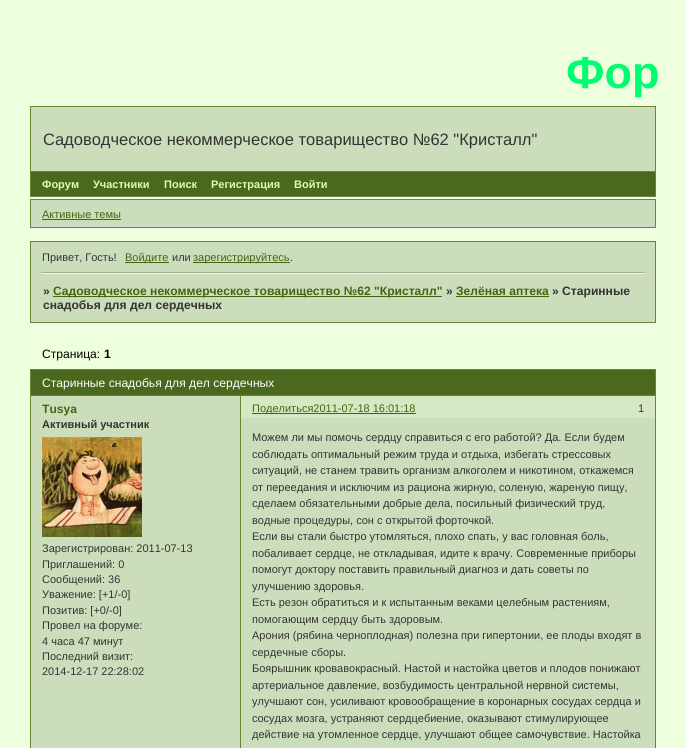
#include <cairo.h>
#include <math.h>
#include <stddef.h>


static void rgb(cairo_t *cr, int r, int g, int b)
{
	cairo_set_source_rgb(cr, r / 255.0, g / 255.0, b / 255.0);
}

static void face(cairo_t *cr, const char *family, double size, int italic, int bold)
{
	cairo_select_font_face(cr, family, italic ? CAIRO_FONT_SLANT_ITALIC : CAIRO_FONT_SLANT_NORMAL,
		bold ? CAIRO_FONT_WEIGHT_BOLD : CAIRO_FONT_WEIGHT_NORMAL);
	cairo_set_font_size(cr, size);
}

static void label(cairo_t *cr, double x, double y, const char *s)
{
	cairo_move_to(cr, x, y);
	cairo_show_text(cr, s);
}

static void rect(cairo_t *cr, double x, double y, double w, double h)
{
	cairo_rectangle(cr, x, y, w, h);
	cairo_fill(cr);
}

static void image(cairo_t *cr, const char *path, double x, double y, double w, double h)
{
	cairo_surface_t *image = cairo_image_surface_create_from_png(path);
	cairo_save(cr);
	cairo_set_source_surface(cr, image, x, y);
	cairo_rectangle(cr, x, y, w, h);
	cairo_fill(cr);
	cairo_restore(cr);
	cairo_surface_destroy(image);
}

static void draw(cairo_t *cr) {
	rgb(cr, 238, 255, 221);
	cairo_paint(cr);
	face(cr, "Liberation Sans", 45, 0, 1);
	rgb(cr, 2, 252, 114);
	label(cr, 566, 88, "Фор");
	rgb(cr, 204, 221, 187);
	rect(cr, 31, 107, 624, 64);
	rgb(cr, 102, 136, 51);
	rect(cr, 30, 106, 626, 1);
	rect(cr, 655, 106, 1, 65);
	rect(cr, 30, 106, 1, 65);
	face(cr, "Liberation Sans", 16.5, 0, 0);
	rgb(cr, 51, 51, 51);
	label(cr, 43, 145, "Садоводческое некоммерческое товарищество №62 \"Кристалл\"");
	rgb(cr, 245, 245, 245);
	rect(cr, 30, 197, 626, 2);
	rgb(cr, 74, 104, 30);
	cairo_rectangle(cr, 30.5, 171.5, 625, 25);
	cairo_fill_preserve(cr);
	rgb(cr, 102, 136, 51);
	cairo_set_line_width(cr, 1);
	cairo_stroke(cr);
	face(cr, "Liberation Sans", 11, 0, 1);
	rgb(cr, 221, 255, 170);
	label(cr, 42, 188, "Форум");
	label(cr, 93, 188, "Участники");
	label(cr, 164, 188, "Поиск");
	label(cr, 211, 188, "Регистрация");
	label(cr, 294, 188, "Войти");
	rgb(cr, 245, 245, 245);
	rect(cr, 30, 228, 626, 2);
	rgb(cr, 204, 221, 187);
	cairo_rectangle(cr, 30.5, 199.5, 625, 28);
	cairo_fill_preserve(cr);
	rgb(cr, 102, 136, 51);
	cairo_stroke(cr);
	face(cr, "Liberation Sans", 11, 0, 0);
	rgb(cr, 68, 102, 17);
	label(cr, 42, 218, "Активные темы");
	rect(cr, 42, 219, 79, 1);
	rgb(cr, 204, 221, 187);
	rect(cr, 31, 242, 624, 80);
	rgb(cr, 102, 136, 51);
	rect(cr, 30, 241, 626, 1);
	rect(cr, 655, 241, 1, 82);
	rect(cr, 30, 241, 1, 33);
	rgb(cr, 51, 51, 51);
	label(cr, 42, 261, "Привет, Гость!");
	rgb(cr, 68, 102, 17);
	rect(cr, 125, 262, 44, 1);
	label(cr, 125, 261, "Войдите");
	rgb(cr, 51, 51, 51);
	label(cr, 172, 261, "или");
	rgb(cr, 68, 102, 17);
	rect(cr, 193, 262, 97, 1);
	label(cr, 193, 261, "зарегистрируйтесь");
	rgb(cr, 51, 51, 51);
	label(cr, 290, 261, ".");
	rgb(cr, 162, 173, 151);
	rect(cr, 41, 272, 604, 1);
	rgb(cr, 238, 255, 221);
	rect(cr, 41, 273, 604, 1);
	rgb(cr, 245, 245, 245);
	rect(cr, 30, 323, 626, 2);
	rgb(cr, 102, 136, 51);
	rect(cr, 30, 322, 626, 1);
	rect(cr, 30, 272, 1, 51);
	face(cr, "Liberation Sans", 12.1, 0, 1);
	rgb(cr, 51, 51, 51);
	label(cr, 43, 295, "»");
	rgb(cr, 68, 102, 17);
	rect(cr, 53, 296, 389, 1);
	label(cr, 53, 295, "Садоводческое некоммерческое товарищество №62 \"Кристалл\"");
	rgb(cr, 51, 51, 51);
	label(cr, 446, 295, "»");
	rgb(cr, 68, 102, 17);
	label(cr, 456, 295, "Зелёная аптека");
	rect(cr, 456, 296, 93, 1);
	rgb(cr, 51, 51, 51);
	label(cr, 552, 295, "» Старинные");
	label(cr, 43, 309, "снадобья для дел сердечных");
	face(cr, "Liberation Sans", 12.1, 0, 0);
	rgb(cr, 0, 0, 0);
	label(cr, 42, 358, "Страница:");
	face(cr, "Liberation Sans", 12.1, 0, 1);
	label(cr, 104, 358, "1");
	rgb(cr, 74, 104, 30);
	rect(cr, 31, 370, 624, 25);
	rgb(cr, 102, 136, 51);
	rect(cr, 30, 369, 626, 1);
	rect(cr, 655, 369, 1, 26);
	rect(cr, 30, 369, 1, 26);
	face(cr, "Liberation Sans", 12.1, 0, 0);
	rgb(cr, 255, 255, 255);
	label(cr, 42, 387, "Старинные снадобья для дел сердечных");
	rgb(cr, 102, 136, 51);
	rect(cr, 240, 396, 1, 23);
	rgb(cr, 204, 221, 187);
	rect(cr, 31, 418, 624, 330);
	rect(cr, 31, 396, 209, 22);
	face(cr, "Liberation Sans", 12.1, 0, 1);
	rgb(cr, 68, 102, 17);
	label(cr, 42, 413, "Tusya");
	face(cr, "Liberation Sans", 11, 0, 1);
	rgb(cr, 51, 51, 51);
	label(cr, 42, 428, "Активный участник");
	image(cr, "image0.png", 42, 437, 100, 100);
	face(cr, "Liberation Sans", 11, 0, 0);
	label(cr, 42, 552, "Зарегистрирован: 2011-07-13");
	label(cr, 42, 568, "Приглашений: 0");
	label(cr, 42, 583, "Сообщений: 36");
	label(cr, 42, 598, "Уважение: [+1/-0]");
	label(cr, 42, 614, "Позитив: [+0/-0]");
	label(cr, 42, 629, "Провел на форуме:");
	label(cr, 42, 645, "4 часа 47 минут");
	label(cr, 42, 660, "Последний визит:");
	label(cr, 42, 675, "2014-12-17 22:28:02");
	rgb(cr, 102, 136, 51);
	rect(cr, 240, 418, 1, 330);
	rgb(cr, 51, 51, 51);
	label(cr, 252, 441, "Можем ли мы помочь сердцу справиться с его работой? Да. Если будем");
	label(cr, 252, 458, "соблюдать оптимальный режим труда и отдыха, избегать стрессовых");
	label(cr, 252, 474, "ситуаций, не станем травить организм алкоголем и никотином, откажемся");
	label(cr, 252, 491, "от переедания и исключим из рациона жирную, соленую, жареную пищу,");
	label(cr, 252, 507, "сделаем обязательными добрые дела, посильный физический труд,");
	label(cr, 252, 524, "водные процедуры, сон с открытой форточкой.");
	label(cr, 252, 540, "Если вы стали быстро утомляться, плохо спать, у вас головная боль,");
	label(cr, 252, 557, "побаливает сердце, не откладывая, идите к врачу. Современные приборы");
	label(cr, 252, 573, "помогут доктору поставить правильный диагноз и дать советы по");
	label(cr, 252, 590, "улучшению здоровья.");
	label(cr, 252, 606, "Есть резон обратиться и к испытанным веками целебным растениям,");
	label(cr, 252, 623, "помогающим сердцу быть здоровым.");
	label(cr, 252, 639, "Арония (рябина черноплодная) полезна при гипертонии, ее плоды входят в");
	label(cr, 252, 656, "сердечные сборы.");
	label(cr, 252, 672, "Боярышник кровавокрасный. Настой и настойка цветов и плодов понижают");
	label(cr, 252, 689, "артериальное давление, возбудимость центральной нервной системы,");
	label(cr, 252, 705, "улучшают сон, усиливают кровообращение в коронарных сосудах сердца и");
	label(cr, 252, 722, "сосудах мозга, устраняют сердцебиение, оказывают стимулирующее");
	label(cr, 252, 738, "действие на утомленное сердце, улучшают общее самочувствие. Настойка");
	rgb(cr, 102, 136, 51);
	rect(cr, 30, 395, 626, 1);
	rect(cr, 655, 395, 1, 353);
	rect(cr, 30, 395, 1, 353);
	rgb(cr, 213, 232, 195);
	rect(cr, 241, 396, 414, 22);
	rgb(cr, 68, 102, 17);
	rect(cr, 252, 413, 164, 1);
	label(cr, 252, 412, "Поделиться2011-07-18 16:01:18");
	rgb(cr, 51, 51, 51);
	label(cr, 638, 412, "1");
}

int main(void) {
	cairo_surface_t *surface = cairo_image_surface_create(CAIRO_FORMAT_RGB24, 686, 748);
	cairo_t *cr = cairo_create(surface);
	cairo_font_options_t *options = cairo_font_options_create();
	cairo_font_options_set_hint_metrics(options, CAIRO_HINT_METRICS_OFF);
	cairo_font_options_set_hint_style(options, CAIRO_HINT_STYLE_NONE);
	cairo_set_font_options(cr, options);
	cairo_set_miter_limit(cr, 4);
	draw(cr);
	cairo_surface_write_to_png(surface, "render.png");
	cairo_font_options_destroy(options);
	cairo_destroy(cr);
	cairo_surface_destroy(surface);
	return 0;
}
